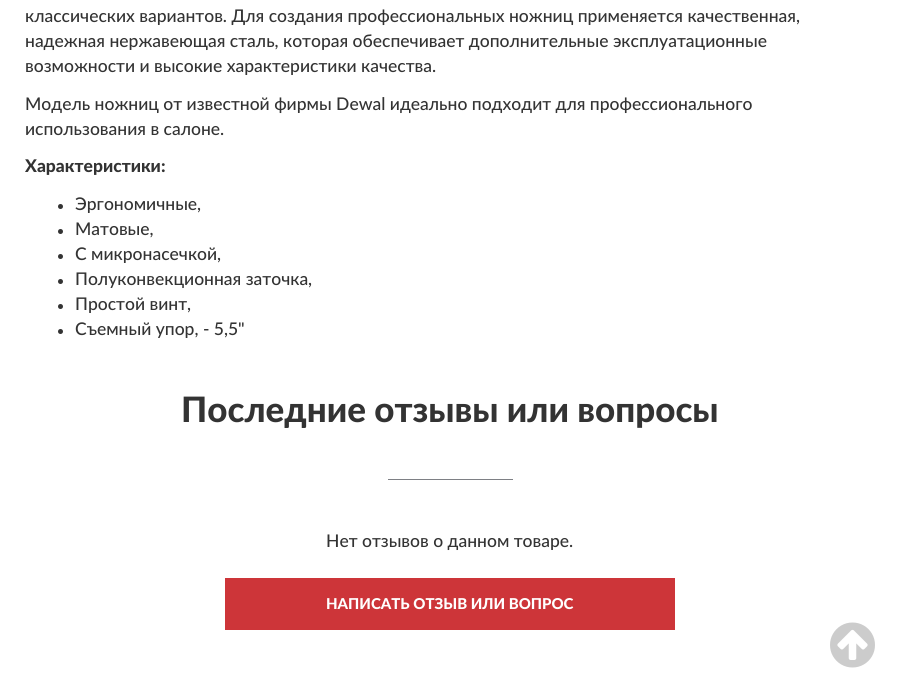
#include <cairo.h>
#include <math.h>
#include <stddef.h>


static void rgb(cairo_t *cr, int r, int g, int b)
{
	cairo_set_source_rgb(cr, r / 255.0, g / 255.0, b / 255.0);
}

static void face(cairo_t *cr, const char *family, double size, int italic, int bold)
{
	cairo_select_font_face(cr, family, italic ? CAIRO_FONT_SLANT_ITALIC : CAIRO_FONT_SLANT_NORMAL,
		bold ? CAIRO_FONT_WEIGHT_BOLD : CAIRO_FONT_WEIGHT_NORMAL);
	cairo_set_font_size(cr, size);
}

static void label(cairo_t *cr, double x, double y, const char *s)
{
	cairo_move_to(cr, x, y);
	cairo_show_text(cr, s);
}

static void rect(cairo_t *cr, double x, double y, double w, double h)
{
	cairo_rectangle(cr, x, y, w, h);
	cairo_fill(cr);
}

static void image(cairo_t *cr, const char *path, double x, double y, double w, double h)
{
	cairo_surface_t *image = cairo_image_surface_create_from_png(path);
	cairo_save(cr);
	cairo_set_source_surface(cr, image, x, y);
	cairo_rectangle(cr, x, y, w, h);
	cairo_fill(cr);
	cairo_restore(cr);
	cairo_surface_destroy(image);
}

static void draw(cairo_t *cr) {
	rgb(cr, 255, 255, 255);
	cairo_paint(cr);
	face(cr, "Lato Medium", 17.5, 0, 0);
	rgb(cr, 51, 51, 51);
	label(cr, 25, 22, "классических вариантов. Для создания профессиональных ножниц применяется качественная,");
	label(cr, 25, 47, "надежная нержавеющая сталь, которая обеспечивает дополнительные эксплуатационные");
	label(cr, 25, 72, "возможности и высокие характеристики качества.");
	label(cr, 25, 110, "Модель ножниц от известной фирмы Dewal идеально подходит для профессионального");
	label(cr, 25, 135, "использования в салоне.");
	face(cr, "Lato Black", 17.5, 0, 0);
	label(cr, 25, 172, "Характеристики:");
	cairo_new_path(cr);
	cairo_arc(cr, 60.5, 206.5, 2.5, 0, 2 * M_PI);
	cairo_fill(cr);
	face(cr, "Lato Medium", 17.5, 0, 0);
	label(cr, 75, 210, "Эргономичные,");
	cairo_new_path(cr);
	cairo_arc(cr, 60.5, 231.5, 2.5, 0, 2 * M_PI);
	cairo_fill(cr);
	label(cr, 75, 235, "Матовые,");
	cairo_new_path(cr);
	cairo_arc(cr, 60.5, 256.5, 2.5, 0, 2 * M_PI);
	cairo_fill(cr);
	label(cr, 75, 260, "С микронасечкой,");
	cairo_new_path(cr);
	cairo_arc(cr, 60.5, 281.5, 2.5, 0, 2 * M_PI);
	cairo_fill(cr);
	label(cr, 75, 285, "Полуконвекционная заточка,");
	cairo_new_path(cr);
	cairo_arc(cr, 60.5, 306.5, 2.5, 0, 2 * M_PI);
	cairo_fill(cr);
	label(cr, 75, 310, "Простой винт,");
	cairo_new_path(cr);
	cairo_arc(cr, 60.5, 331.5, 2.5, 0, 2 * M_PI);
	cairo_fill(cr);
	label(cr, 75, 335, "Съемный упор, - 5,5\"");
	face(cr, "Lato Black", 35, 0, 0);
	label(cr, 181, 422, "Последние отзывы или вопросы");
	rgb(cr, 126, 128, 133);
	rect(cr, 388, 479, 125, 1);
	face(cr, "Lato Medium", 17.5, 0, 0);
	rgb(cr, 51, 51, 51);
	label(cr, 326, 547, "Нет отзывов о данном товаре.");
	rgb(cr, 205, 53, 57);
	rect(cr, 225, 578, 450, 52);
	face(cr, "Lato Black", 15, 0, 0);
	rgb(cr, 255, 255, 255);
	label(cr, 326, 609, "НАПИСАТЬ ОТЗЫВ ИЛИ ВОПРОС");
	image(cr, "image0.png", 830, 622, 45, 46);
}

int main(void) {
	cairo_surface_t *surface = cairo_image_surface_create(CAIRO_FORMAT_RGB24, 899, 696);
	cairo_t *cr = cairo_create(surface);
	cairo_font_options_t *options = cairo_font_options_create();
	cairo_font_options_set_hint_metrics(options, CAIRO_HINT_METRICS_OFF);
	cairo_font_options_set_hint_style(options, CAIRO_HINT_STYLE_NONE);
	cairo_set_font_options(cr, options);
	cairo_set_miter_limit(cr, 4);
	draw(cr);
	cairo_surface_write_to_png(surface, "render.png");
	cairo_font_options_destroy(options);
	cairo_destroy(cr);
	cairo_surface_destroy(surface);
	return 0;
}
